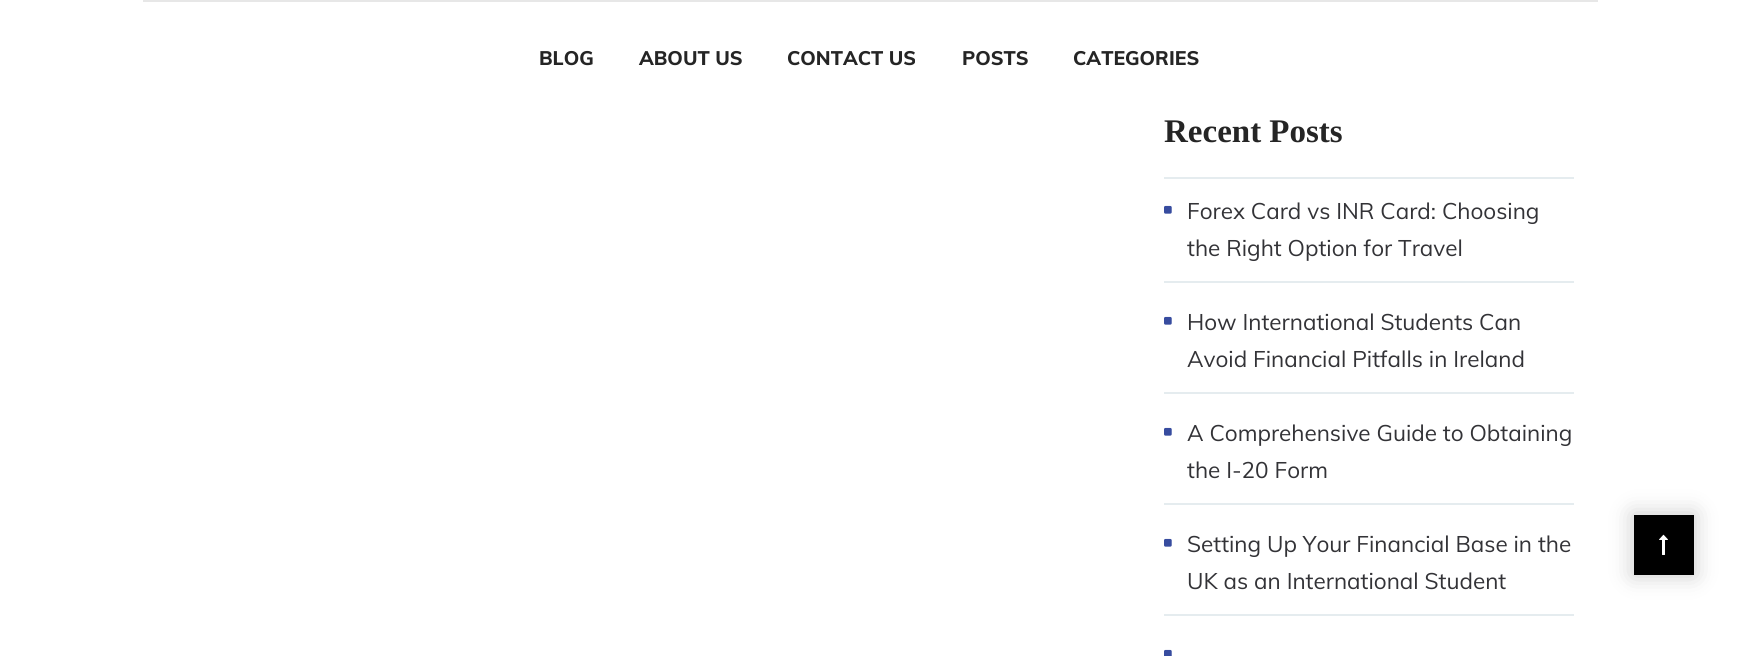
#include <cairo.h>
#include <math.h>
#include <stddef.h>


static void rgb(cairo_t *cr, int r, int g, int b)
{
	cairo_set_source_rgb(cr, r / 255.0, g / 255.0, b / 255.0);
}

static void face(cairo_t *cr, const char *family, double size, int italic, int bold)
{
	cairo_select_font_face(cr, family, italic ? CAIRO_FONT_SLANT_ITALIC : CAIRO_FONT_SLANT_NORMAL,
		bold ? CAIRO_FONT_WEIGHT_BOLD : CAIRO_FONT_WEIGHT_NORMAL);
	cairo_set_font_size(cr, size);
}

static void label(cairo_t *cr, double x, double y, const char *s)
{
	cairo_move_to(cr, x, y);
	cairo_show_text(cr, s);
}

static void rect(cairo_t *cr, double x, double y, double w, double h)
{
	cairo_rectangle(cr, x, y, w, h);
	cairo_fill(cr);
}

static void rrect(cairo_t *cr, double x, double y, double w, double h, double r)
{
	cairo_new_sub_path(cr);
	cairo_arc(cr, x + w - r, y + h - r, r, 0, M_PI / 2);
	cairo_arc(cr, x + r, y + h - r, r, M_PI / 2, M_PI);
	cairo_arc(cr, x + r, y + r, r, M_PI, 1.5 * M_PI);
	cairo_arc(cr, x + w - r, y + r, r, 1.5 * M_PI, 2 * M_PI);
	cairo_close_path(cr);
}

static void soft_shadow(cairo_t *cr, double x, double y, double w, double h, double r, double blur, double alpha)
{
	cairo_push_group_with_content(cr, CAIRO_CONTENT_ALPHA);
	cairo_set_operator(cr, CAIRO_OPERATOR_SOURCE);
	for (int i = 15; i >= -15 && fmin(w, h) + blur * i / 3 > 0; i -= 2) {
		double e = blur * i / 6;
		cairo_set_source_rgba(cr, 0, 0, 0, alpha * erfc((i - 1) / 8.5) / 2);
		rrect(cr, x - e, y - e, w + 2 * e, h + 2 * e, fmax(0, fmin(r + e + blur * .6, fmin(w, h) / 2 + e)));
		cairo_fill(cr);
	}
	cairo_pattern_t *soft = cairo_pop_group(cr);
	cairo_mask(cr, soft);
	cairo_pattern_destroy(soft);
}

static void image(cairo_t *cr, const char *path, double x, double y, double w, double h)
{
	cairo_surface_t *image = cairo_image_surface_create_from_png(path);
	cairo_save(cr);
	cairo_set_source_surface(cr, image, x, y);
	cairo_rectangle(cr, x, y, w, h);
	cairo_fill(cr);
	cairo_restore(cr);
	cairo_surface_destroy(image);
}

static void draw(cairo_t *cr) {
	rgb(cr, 255, 255, 255);
	cairo_paint(cr);
	rgb(cr, 231, 231, 231);
	rect(cr, 143, 0, 1455, 2);
	face(cr, "Muli ExtraBold", 19.5, 0, 0);
	rgb(cr, 37, 37, 37);
	label(cr, 539, 65, "BLOG");
	label(cr, 639, 65, "ABOUT US");
	label(cr, 787, 65, "CONTACT US");
	label(cr, 962, 65, "POSTS");
	label(cr, 1073, 65, "CATEGORIES");
	face(cr, "Liberation Serif", 33, 0, 1);
	label(cr, 1164, 142, "Recent Posts");
	rgb(cr, 229, 236, 239);
	rect(cr, 1164, 177, 410, 2);
	rect(cr, 1164, 281, 410, 2);
	image(cr, "image0.png", 1164, 205, 8, 9);
	face(cr, "Muli", 22.5, 0, 0);
	rgb(cr, 51, 51, 55);
	label(cr, 1187, 219, "Forex Card vs INR Card: Choosing");
	label(cr, 1187, 256, "the Right Option for Travel");
	rgb(cr, 229, 236, 239);
	rect(cr, 1164, 392, 410, 2);
	image(cr, "image0.png", 1164, 316, 8, 9);
	rgb(cr, 51, 51, 55);
	label(cr, 1187, 330, "How International Students Can");
	label(cr, 1187, 367, "Avoid Financial Pitfalls in Ireland");
	rgb(cr, 229, 236, 239);
	rect(cr, 1164, 503, 410, 2);
	image(cr, "image0.png", 1164, 427, 8, 9);
	rgb(cr, 51, 51, 55);
	label(cr, 1187, 441, "A Comprehensive Guide to Obtaining");
	label(cr, 1187, 478, "the I-20 Form");
	rgb(cr, 229, 236, 239);
	rect(cr, 1164, 614, 410, 2);
	image(cr, "image0.png", 1164, 538, 8, 9);
	rgb(cr, 51, 51, 55);
	label(cr, 1187, 552, "Setting Up Your Financial Base in the");
	label(cr, 1187, 589, "UK as an International Student");
	image(cr, "image1.png", 1164, 649, 8, 7);
	rgb(cr, 0, 0, 0);
	soft_shadow(cr, 1632, 513, 63, 63, 0, 11, 0.2);
	rgb(cr, 0, 0, 0);
	rect(cr, 1634, 515, 60, 60);
	image(cr, "image2.png", 1659, 534, 9, 21);
}

int main(void) {
	cairo_surface_t *surface = cairo_image_surface_create(CAIRO_FORMAT_RGB24, 1738, 656);
	cairo_t *cr = cairo_create(surface);
	cairo_font_options_t *options = cairo_font_options_create();
	cairo_font_options_set_hint_metrics(options, CAIRO_HINT_METRICS_OFF);
	cairo_font_options_set_hint_style(options, CAIRO_HINT_STYLE_NONE);
	cairo_set_font_options(cr, options);
	cairo_set_miter_limit(cr, 4);
	draw(cr);
	cairo_surface_write_to_png(surface, "render.png");
	cairo_font_options_destroy(options);
	cairo_destroy(cr);
	cairo_surface_destroy(surface);
	return 0;
}
